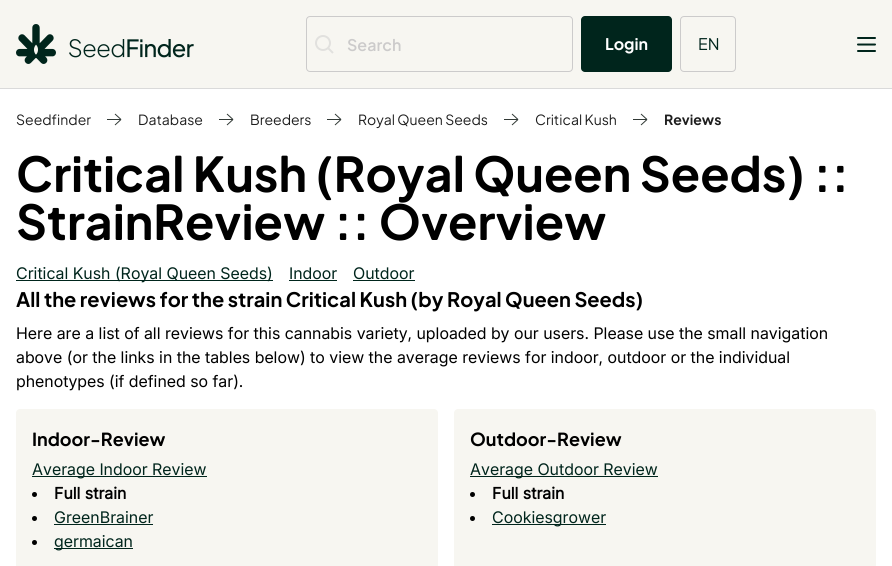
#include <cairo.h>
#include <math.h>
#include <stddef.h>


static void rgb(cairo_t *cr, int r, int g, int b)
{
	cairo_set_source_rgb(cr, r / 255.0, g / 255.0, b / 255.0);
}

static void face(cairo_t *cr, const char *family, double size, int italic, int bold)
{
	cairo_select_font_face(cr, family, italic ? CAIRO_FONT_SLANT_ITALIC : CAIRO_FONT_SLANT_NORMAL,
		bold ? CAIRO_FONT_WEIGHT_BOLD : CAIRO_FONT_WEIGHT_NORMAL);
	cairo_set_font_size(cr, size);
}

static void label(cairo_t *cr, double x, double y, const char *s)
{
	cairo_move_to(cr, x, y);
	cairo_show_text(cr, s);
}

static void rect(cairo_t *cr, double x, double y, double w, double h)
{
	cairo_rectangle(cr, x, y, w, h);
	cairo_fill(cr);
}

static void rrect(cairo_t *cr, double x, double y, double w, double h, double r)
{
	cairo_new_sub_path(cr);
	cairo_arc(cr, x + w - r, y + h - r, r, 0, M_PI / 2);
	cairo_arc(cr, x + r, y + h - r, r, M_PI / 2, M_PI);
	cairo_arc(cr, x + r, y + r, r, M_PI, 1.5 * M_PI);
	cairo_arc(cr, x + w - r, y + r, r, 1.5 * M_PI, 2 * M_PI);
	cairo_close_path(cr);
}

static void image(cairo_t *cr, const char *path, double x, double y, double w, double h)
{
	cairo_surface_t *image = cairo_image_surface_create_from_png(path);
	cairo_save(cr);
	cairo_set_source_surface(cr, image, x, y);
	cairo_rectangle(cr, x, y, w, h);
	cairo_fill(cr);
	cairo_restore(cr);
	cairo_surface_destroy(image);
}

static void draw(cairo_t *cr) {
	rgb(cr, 255, 255, 255);
	cairo_paint(cr);
	rgb(cr, 247, 246, 241);
	rect(cr, 0, 0, 892, 88);
	rgb(cr, 218, 218, 218);
	rect(cr, 0, 88, 892, 1);
	image(cr, "image0.png", 16, 24, 178, 40);
	rrect(cr, 306.5, 16.5, 266, 55, 3.5);
	rgb(cr, 204, 203, 203);
	cairo_set_line_width(cr, 1);
	cairo_stroke(cr);
	image(cr, "image1.png", 315, 35, 19, 19);
	face(cr, "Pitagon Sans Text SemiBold", 16, 0, 0);
	label(cr, 347, 51, "Search");
	rgb(cr, 0, 37, 28);
	rrect(cr, 581, 16, 91, 56, 4);
	cairo_fill(cr);
	face(cr, "Pitagon Sans Text", 16, 0, 1);
	rgb(cr, 255, 255, 255);
	label(cr, 605, 50, "Login");
	rrect(cr, 680.5, 16.5, 55, 55, 3.5);
	rgb(cr, 204, 203, 203);
	cairo_stroke(cr);
	face(cr, "Pitagon Sans Text", 16, 0, 0);
	rgb(cr, 0, 37, 28);
	label(cr, 698, 50, "EN");
	image(cr, "image2.png", 857, 37, 19, 15);
	face(cr, "Pitagon Sans Text", 14, 0, 0);
	rgb(cr, 30, 30, 30);
	label(cr, 16, 125, "Seedfinder");
	cairo_new_path(cr);
	cairo_move_to(cr, 115, 125);
	cairo_line_to(cr, 121, 119.5);
	cairo_move_to(cr, 121, 119.5);
	cairo_line_to(cr, 115, 114);
	cairo_move_to(cr, 121, 119.5);
	cairo_line_to(cr, 107, 119.5);
	rgb(cr, 49, 57, 53);
	cairo_stroke(cr);
	rgb(cr, 30, 30, 30);
	label(cr, 138, 125, "Database");
	cairo_new_path(cr);
	cairo_move_to(cr, 227, 125);
	cairo_line_to(cr, 233, 119.5);
	cairo_move_to(cr, 233, 119.5);
	cairo_line_to(cr, 227, 114);
	cairo_move_to(cr, 233, 119.5);
	cairo_line_to(cr, 219, 119.5);
	rgb(cr, 49, 57, 53);
	cairo_stroke(cr);
	rgb(cr, 30, 30, 30);
	label(cr, 250, 125, "Breeders");
	cairo_new_path(cr);
	cairo_move_to(cr, 335, 125);
	cairo_line_to(cr, 341, 119.5);
	cairo_move_to(cr, 341, 119.5);
	cairo_line_to(cr, 335, 114);
	cairo_move_to(cr, 341, 119.5);
	cairo_line_to(cr, 327, 119.5);
	rgb(cr, 49, 57, 53);
	cairo_stroke(cr);
	rgb(cr, 30, 30, 30);
	label(cr, 358, 125, "Royal Queen Seeds");
	cairo_new_path(cr);
	cairo_move_to(cr, 512, 125);
	cairo_line_to(cr, 518, 119.5);
	cairo_move_to(cr, 518, 119.5);
	cairo_line_to(cr, 512, 114);
	cairo_move_to(cr, 518, 119.5);
	cairo_line_to(cr, 504, 119.5);
	rgb(cr, 49, 57, 53);
	cairo_stroke(cr);
	rgb(cr, 30, 30, 30);
	label(cr, 535, 125, "Critical Kush");
	cairo_new_path(cr);
	cairo_move_to(cr, 641, 125);
	cairo_line_to(cr, 647, 119.5);
	cairo_move_to(cr, 647, 119.5);
	cairo_line_to(cr, 641, 114);
	cairo_move_to(cr, 647, 119.5);
	cairo_line_to(cr, 633, 119.5);
	rgb(cr, 49, 57, 53);
	cairo_stroke(cr);
	face(cr, "Pitagon Sans Text", 14, 0, 1);
	rgb(cr, 30, 30, 30);
	label(cr, 664, 125, "Reviews");
	face(cr, "Pitagon Sans Text", 48, 0, 1);
	rgb(cr, 0, 0, 0);
	label(cr, 16, 192, "Critical Kush (Royal Queen Seeds) ::");
	label(cr, 16, 240, "StrainReview :: Overview");
	rgb(cr, 0, 37, 28);
	rect(cr, 16, 280, 257, 1);
	face(cr, "Inter", 16, 0, 0);
	label(cr, 16, 279, "Critical Kush (Royal Queen Seeds)");
	label(cr, 289, 279, "Indoor");
	rect(cr, 289, 280, 48, 1);
	label(cr, 353, 279, "Outdoor");
	rect(cr, 353, 280, 62, 1);
	face(cr, "Pitagon Sans Text", 20, 0, 1);
	rgb(cr, 0, 0, 0);
	label(cr, 16, 307, "All the reviews for the strain Critical Kush (by Royal Queen Seeds)");
	face(cr, "Inter", 16, 0, 0);
	label(cr, 16, 339, "Here are a list of all reviews for this cannabis variety, uploaded by our users. Please use the small navigation");
	label(cr, 16, 363, "above (or the links in the tables below) to view the average reviews for indoor, outdoor or the individual");
	label(cr, 16, 387, "phenotypes (if defined so far).");
	rgb(cr, 247, 246, 241);
	rrect(cr, 16, 409, 422, 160, 4);
	cairo_fill(cr);
	face(cr, "Pitagon Sans Text", 18, 0, 1);
	rgb(cr, 0, 0, 0);
	label(cr, 32, 446, "Indoor-Review");
	rgb(cr, 0, 37, 28);
	rect(cr, 32, 476, 175, 1);
	face(cr, "Inter", 16, 0, 0);
	label(cr, 32, 475, "Average Indoor Review");
	rgb(cr, 0, 0, 0);
	cairo_new_path(cr);
	cairo_arc(cr, 34.5, 494.5, 2.5, 0, 2 * M_PI);
	cairo_fill(cr);
	face(cr, "Inter", 16, 0, 1);
	label(cr, 54, 499, "Full strain");
	cairo_new_path(cr);
	cairo_arc(cr, 34.5, 518.5, 2.5, 0, 2 * M_PI);
	cairo_fill(cr);
	face(cr, "Inter", 16, 0, 0);
	rgb(cr, 0, 37, 28);
	label(cr, 54, 523, "GreenBrainer");
	rect(cr, 54, 524, 99, 1);
	rgb(cr, 0, 0, 0);
	cairo_new_path(cr);
	cairo_arc(cr, 34.5, 542.5, 2.5, 0, 2 * M_PI);
	cairo_fill(cr);
	rgb(cr, 0, 37, 28);
	rect(cr, 54, 548, 79, 1);
	label(cr, 54, 547, "germaican");
	rgb(cr, 247, 246, 241);
	rrect(cr, 454, 409, 422, 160, 4);
	cairo_fill(cr);
	face(cr, "Pitagon Sans Text", 18, 0, 1);
	rgb(cr, 0, 0, 0);
	label(cr, 470, 446, "Outdoor-Review");
	rgb(cr, 0, 37, 28);
	rect(cr, 470, 476, 188, 1);
	face(cr, "Inter", 16, 0, 0);
	label(cr, 470, 475, "Average Outdoor Review");
	rgb(cr, 0, 0, 0);
	cairo_new_path(cr);
	cairo_arc(cr, 472.5, 494.5, 2.5, 0, 2 * M_PI);
	cairo_fill(cr);
	face(cr, "Inter", 16, 0, 1);
	label(cr, 492, 499, "Full strain");
	cairo_new_path(cr);
	cairo_arc(cr, 472.5, 518.5, 2.5, 0, 2 * M_PI);
	cairo_fill(cr);
	rgb(cr, 0, 37, 28);
	rect(cr, 492, 524, 114, 1);
	face(cr, "Inter", 16, 0, 0);
	label(cr, 492, 523, "Cookiesgrower");
}

int main(void) {
	cairo_surface_t *surface = cairo_image_surface_create(CAIRO_FORMAT_RGB24, 892, 566);
	cairo_t *cr = cairo_create(surface);
	cairo_font_options_t *options = cairo_font_options_create();
	cairo_font_options_set_hint_metrics(options, CAIRO_HINT_METRICS_OFF);
	cairo_font_options_set_hint_style(options, CAIRO_HINT_STYLE_NONE);
	cairo_set_font_options(cr, options);
	cairo_set_miter_limit(cr, 4);
	draw(cr);
	cairo_surface_write_to_png(surface, "render.png");
	cairo_font_options_destroy(options);
	cairo_destroy(cr);
	cairo_surface_destroy(surface);
	return 0;
}
